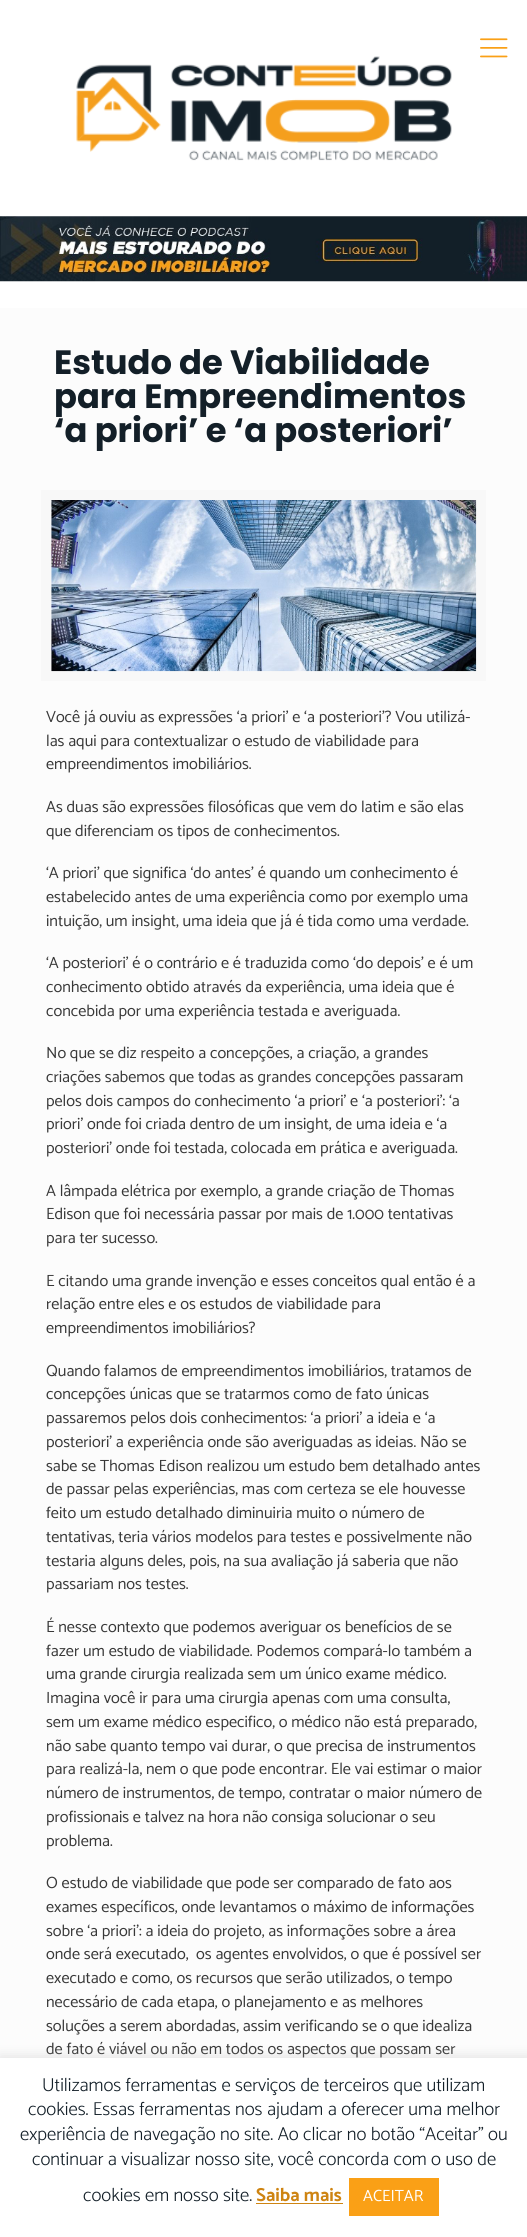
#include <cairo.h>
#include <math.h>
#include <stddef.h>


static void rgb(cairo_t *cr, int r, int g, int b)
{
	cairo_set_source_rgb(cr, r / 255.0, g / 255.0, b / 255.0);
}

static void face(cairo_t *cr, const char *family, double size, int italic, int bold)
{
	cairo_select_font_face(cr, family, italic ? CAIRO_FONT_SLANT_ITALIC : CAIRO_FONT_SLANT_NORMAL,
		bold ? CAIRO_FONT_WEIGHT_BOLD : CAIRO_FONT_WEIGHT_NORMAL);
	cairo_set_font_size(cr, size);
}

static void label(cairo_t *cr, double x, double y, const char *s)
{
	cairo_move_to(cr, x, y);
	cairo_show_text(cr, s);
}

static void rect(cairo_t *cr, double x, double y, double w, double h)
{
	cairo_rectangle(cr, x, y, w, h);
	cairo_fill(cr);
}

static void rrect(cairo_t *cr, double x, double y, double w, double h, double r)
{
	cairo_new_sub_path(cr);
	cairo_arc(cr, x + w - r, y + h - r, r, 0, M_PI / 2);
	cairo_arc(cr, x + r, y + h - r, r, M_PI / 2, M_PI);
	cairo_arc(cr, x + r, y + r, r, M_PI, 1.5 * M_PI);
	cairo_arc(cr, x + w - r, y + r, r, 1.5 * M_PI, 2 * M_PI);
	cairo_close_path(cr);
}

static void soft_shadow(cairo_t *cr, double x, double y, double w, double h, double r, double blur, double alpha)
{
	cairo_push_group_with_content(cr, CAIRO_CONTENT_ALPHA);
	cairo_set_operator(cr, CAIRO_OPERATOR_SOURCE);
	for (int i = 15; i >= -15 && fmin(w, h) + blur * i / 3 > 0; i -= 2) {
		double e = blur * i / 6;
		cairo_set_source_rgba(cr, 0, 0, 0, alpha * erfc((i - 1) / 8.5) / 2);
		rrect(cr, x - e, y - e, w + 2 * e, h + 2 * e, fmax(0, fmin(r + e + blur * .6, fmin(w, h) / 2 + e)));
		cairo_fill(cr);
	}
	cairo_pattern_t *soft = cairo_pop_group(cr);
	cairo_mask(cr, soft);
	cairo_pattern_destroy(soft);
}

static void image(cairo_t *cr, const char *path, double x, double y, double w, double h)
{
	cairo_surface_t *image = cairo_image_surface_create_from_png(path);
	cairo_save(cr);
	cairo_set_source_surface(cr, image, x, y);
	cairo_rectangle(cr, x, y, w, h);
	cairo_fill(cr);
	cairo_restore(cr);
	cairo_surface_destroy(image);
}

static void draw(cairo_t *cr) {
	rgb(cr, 252, 252, 252);
	cairo_paint(cr);
	rgb(cr, 255, 255, 255);
	rect(cr, 0, 0, 527, 308);
	image(cr, "image0.png", 480, 38, 28, 20);
	image(cr, "image1.png", 76, 56, 376, 105);
	image(cr, "image2.png", 0, 216, 527, 66);
	face(cr, "Poppins", 33.75, 0, 1);
	rgb(cr, 19, 31, 40);
	label(cr, 54, 374, "Estudo de Viabilidade");
	label(cr, 54, 408, "para Empreendimentos");
	label(cr, 54, 442, "‘a priori’ e ‘a posteriori’");
	cairo_rectangle(cr, 46, 495, 435, 181);
	rgb(cr, 248, 248, 248);
	cairo_set_line_width(cr, 10);
	cairo_stroke(cr);
	image(cr, "image3.png", 51, 500, 426, 172);
	face(cr, "Catamaran", 16.25, 0, 0);
	rgb(cr, 56, 56, 56);
	label(cr, 46, 722, "Você já ouviu as expressões ‘a priori’ e ‘a posteriori’? Vou utilizá-");
	label(cr, 46, 746, "las aqui para contextualizar o estudo de viabilidade para");
	label(cr, 46, 769, "empreendimentos imobiliários.");
	label(cr, 46, 812, "As duas são expressões filosóficas que vem do latim e são elas");
	label(cr, 46, 836, "que diferenciam os tipos de conhecimentos.");
	label(cr, 46, 878, "‘A priori’ que significa ‘do antes’ é quando um conhecimento é");
	label(cr, 46, 902, "estabelecido antes de uma experiência como por exemplo uma");
	label(cr, 46, 926, "intuição, um insight, uma ideia que já é tida como uma verdade.");
	label(cr, 46, 968, "‘A posteriori’ é o contrário e é traduzida como ‘do depois’ e é um");
	label(cr, 46, 992, "conhecimento obtido através da experiência, uma ideia que é");
	label(cr, 46, 1016, "concebida por uma experiência testada e averiguada.");
	label(cr, 46, 1058, "No que se diz respeito a concepções, a criação, a grandes");
	label(cr, 46, 1082, "criações sabemos que todas as grandes concepções passaram");
	label(cr, 46, 1106, "pelos dois campos do conhecimento ‘a priori’ e ‘a posteriori’: ‘a");
	label(cr, 46, 1129, "priori’ onde foi criada dentro de um insight, de uma ideia e ‘a");
	label(cr, 46, 1153, "posteriori’ onde foi testada, colocada em prática e averiguada.");
	label(cr, 46, 1196, "A lâmpada elétrica por exemplo, a grande criação de Thomas");
	label(cr, 46, 1219, "Edison que foi necessária passar por mais de 1.000 tentativas");
	label(cr, 46, 1243, "para ter sucesso.");
	label(cr, 46, 1286, "E citando uma grande invenção e esses conceitos qual então é a");
	label(cr, 46, 1309, "relação entre eles e os estudos de viabilidade para");
	label(cr, 46, 1333, "empreendimentos imobiliários?");
	label(cr, 46, 1376, "Quando falamos de empreendimentos imobiliários, tratamos de");
	label(cr, 46, 1399, "concepções únicas que se tratarmos como de fato únicas");
	label(cr, 46, 1423, "passaremos pelos dois conhecimentos: ‘a priori’ a ideia e ‘a");
	label(cr, 46, 1447, "posteriori’ a experiência onde são averiguadas as ideias. Não se");
	label(cr, 46, 1471, "sabe se Thomas Edison realizou um estudo bem detalhado antes");
	label(cr, 46, 1494, "de passar pelas experiências, mas com certeza se ele houvesse");
	label(cr, 46, 1518, "feito um estudo detalhado diminuiria muito o número de");
	label(cr, 46, 1542, "tentativas, teria vários modelos para testes e possivelmente não");
	label(cr, 46, 1566, "testaria alguns deles, pois, na sua avaliação já saberia que não");
	label(cr, 46, 1589, "passariam nos testes.");
	label(cr, 46, 1632, "É nesse contexto que podemos averiguar os benefícios de se");
	label(cr, 46, 1656, "fazer um estudo de viabilidade. Podemos compará-lo também a");
	label(cr, 46, 1679, "uma grande cirurgia realizada sem um único exame médico.");
	label(cr, 46, 1703, "Imagina você ir para uma cirurgia apenas com uma consulta,");
	label(cr, 46, 1727, "sem um exame médico especifico, o médico não está preparado,");
	label(cr, 46, 1751, "não sabe quanto tempo vai durar, o que precisa de instrumentos");
	label(cr, 46, 1774, "para realizá-la, nem o que pode encontrar. Ele vai estimar o maior");
	label(cr, 46, 1798, "número de instrumentos, de tempo, contratar o maior número de");
	label(cr, 46, 1822, "profissionais e talvez na hora não consiga solucionar o seu");
	label(cr, 46, 1846, "problema.");
	label(cr, 46, 1888, "O estudo de viabilidade que pode ser comparado de fato aos");
	label(cr, 46, 1912, "exames específicos, onde levantamos o máximo de informações");
	label(cr, 46, 1936, "sobre ‘a priori’: a ideia do projeto, as informações sobre a área");
	label(cr, 46, 1959, "onde será executado,  os agentes envolvidos, o que é possível ser");
	label(cr, 46, 1983, "executado e como, os recursos que serão utilizados, o tempo");
	label(cr, 46, 2007, "necessário de cada etapa, o planejamento e as melhores");
	label(cr, 46, 2031, "soluções a serem abordadas, assim verificando se o que idealiza");
	label(cr, 46, 2054, "de fato é viável ou não em todos os aspectos que possam ser");
	rgb(cr, 172, 171, 171);
	soft_shadow(cr, 0, 2056, 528, 180, 0, 6, 0.3);
	rgb(cr, 255, 255, 255);
	rect(cr, 0, 2058, 527, 179);
	face(cr, "Catamaran Light", 18.75, 0, 0);
	rgb(cr, 19, 31, 40);
	label(cr, 42, 2091, "Utilizamos ferramentas e serviços de terceiros que utilizam");
	label(cr, 28, 2115, "cookies. Essas ferramentas nos ajudam a oferecer uma melhor");
	label(cr, 20, 2140, "experiência de navegação no site. Ao clicar no botão “Aceitar” ou");
	label(cr, 32, 2165, "continuar a visualizar nosso site, você concorda com o uso de");
	label(cr, 83, 2201, "cookies em nosso site.");
	face(cr, "Catamaran", 18.75, 0, 1);
	rgb(cr, 206, 132, 18);
	label(cr, 256, 2201, "Saiba mais");
	rect(cr, 256, 2203, 87, 1);
	rgb(cr, 250, 160, 22);
	rect(cr, 349, 2178, 90, 38);
	face(cr, "Catamaran", 16.25, 0, 0);
	rgb(cr, 255, 255, 255);
	label(cr, 363, 2201, "ACEITAR");
}

int main(void) {
	cairo_surface_t *surface = cairo_image_surface_create(CAIRO_FORMAT_RGB24, 527, 2237);
	cairo_t *cr = cairo_create(surface);
	cairo_font_options_t *options = cairo_font_options_create();
	cairo_font_options_set_hint_metrics(options, CAIRO_HINT_METRICS_OFF);
	cairo_font_options_set_hint_style(options, CAIRO_HINT_STYLE_NONE);
	cairo_set_font_options(cr, options);
	cairo_set_miter_limit(cr, 4);
	draw(cr);
	cairo_surface_write_to_png(surface, "render.png");
	cairo_font_options_destroy(options);
	cairo_destroy(cr);
	cairo_surface_destroy(surface);
	return 0;
}
